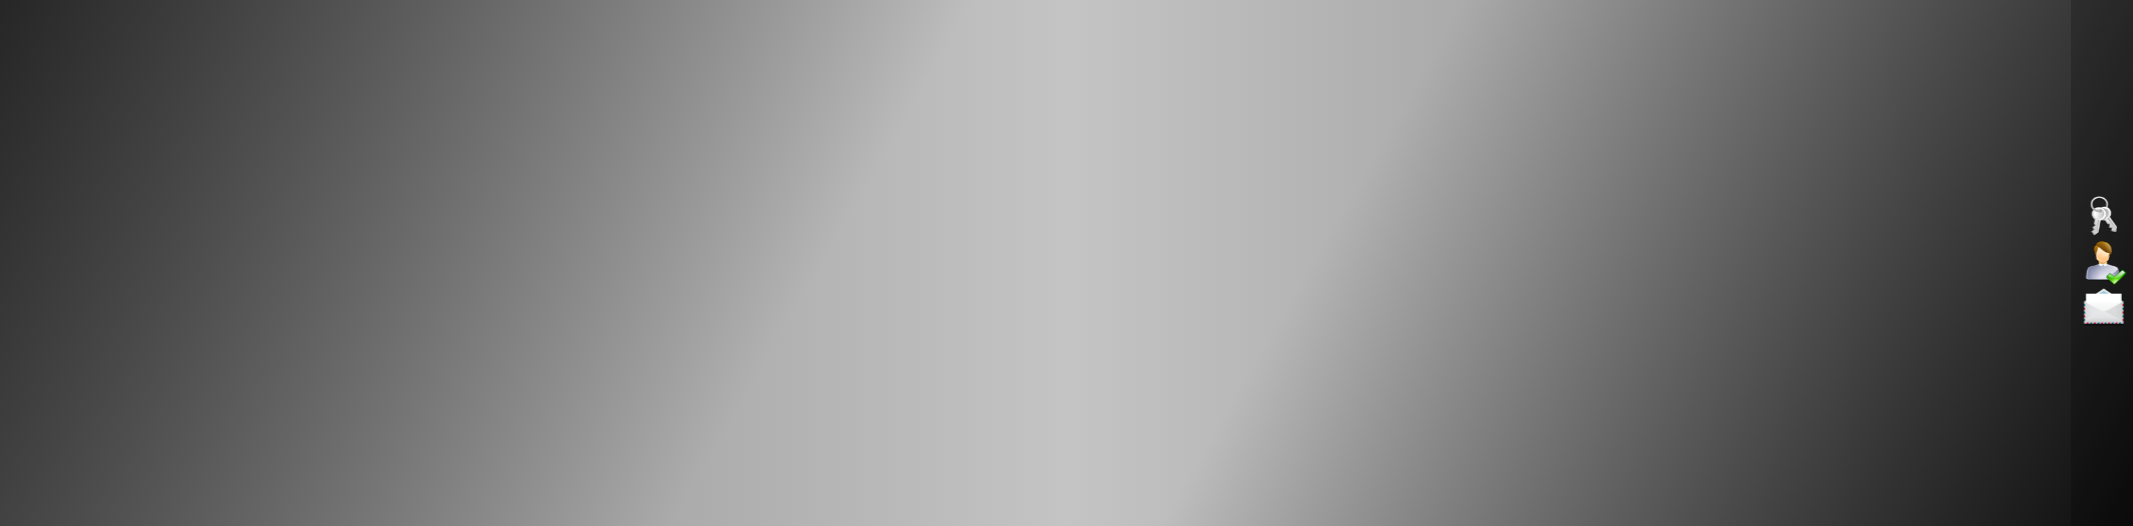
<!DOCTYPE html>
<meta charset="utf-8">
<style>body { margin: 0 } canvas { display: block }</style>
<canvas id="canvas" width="2133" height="526"></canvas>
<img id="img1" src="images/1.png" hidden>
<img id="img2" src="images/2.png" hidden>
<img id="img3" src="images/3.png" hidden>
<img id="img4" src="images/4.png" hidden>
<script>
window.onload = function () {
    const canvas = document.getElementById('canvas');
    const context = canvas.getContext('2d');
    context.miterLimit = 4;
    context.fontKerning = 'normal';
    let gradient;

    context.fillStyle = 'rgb(255, 255, 255)';
    context.fillRect(0, 0, 2133, 526);
    gradient = context.createLinearGradient(0, 263, 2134, 263);
    gradient.addColorStop(0, 'rgb(128, 128, 128)');
    gradient.addColorStop(0.5, 'rgb(196, 196, 196)');
    gradient.addColorStop(1, 'rgb(128, 128, 128)');
    context.fillStyle = gradient;
    context.fillRect(0, 0, 2133, 526);
    gradient = context.createLinearGradient(1981, 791, 153, -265);
    gradient.addColorStop(0, 'rgba(0, 0, 0, 0.9)');
    gradient.addColorStop(0.4, 'rgba(0, 0, 0, 0)');
    gradient.addColorStop(0.6, 'rgba(0, 0, 0, 0)');
    gradient.addColorStop(1, 'rgba(0, 0, 0, 0.7)');
    context.fillStyle = gradient;
    context.fillRect(0, 0, 2133, 526);
    context.fillStyle = 'rgba(0, 0, 0, 0.2)';
    context.fillRect(2071, 0, 62, 526);
    context.drawImage(document.getElementById('img1'), 2090, 196, 28, 40);
    context.drawImage(document.getElementById('img2'), 2085, 241, 36, 40);
    context.drawImage(document.getElementById('img3'), 2106, 269, 21, 16);
    context.drawImage(document.getElementById('img4'), 2083, 288, 41, 38);
};
</script>
